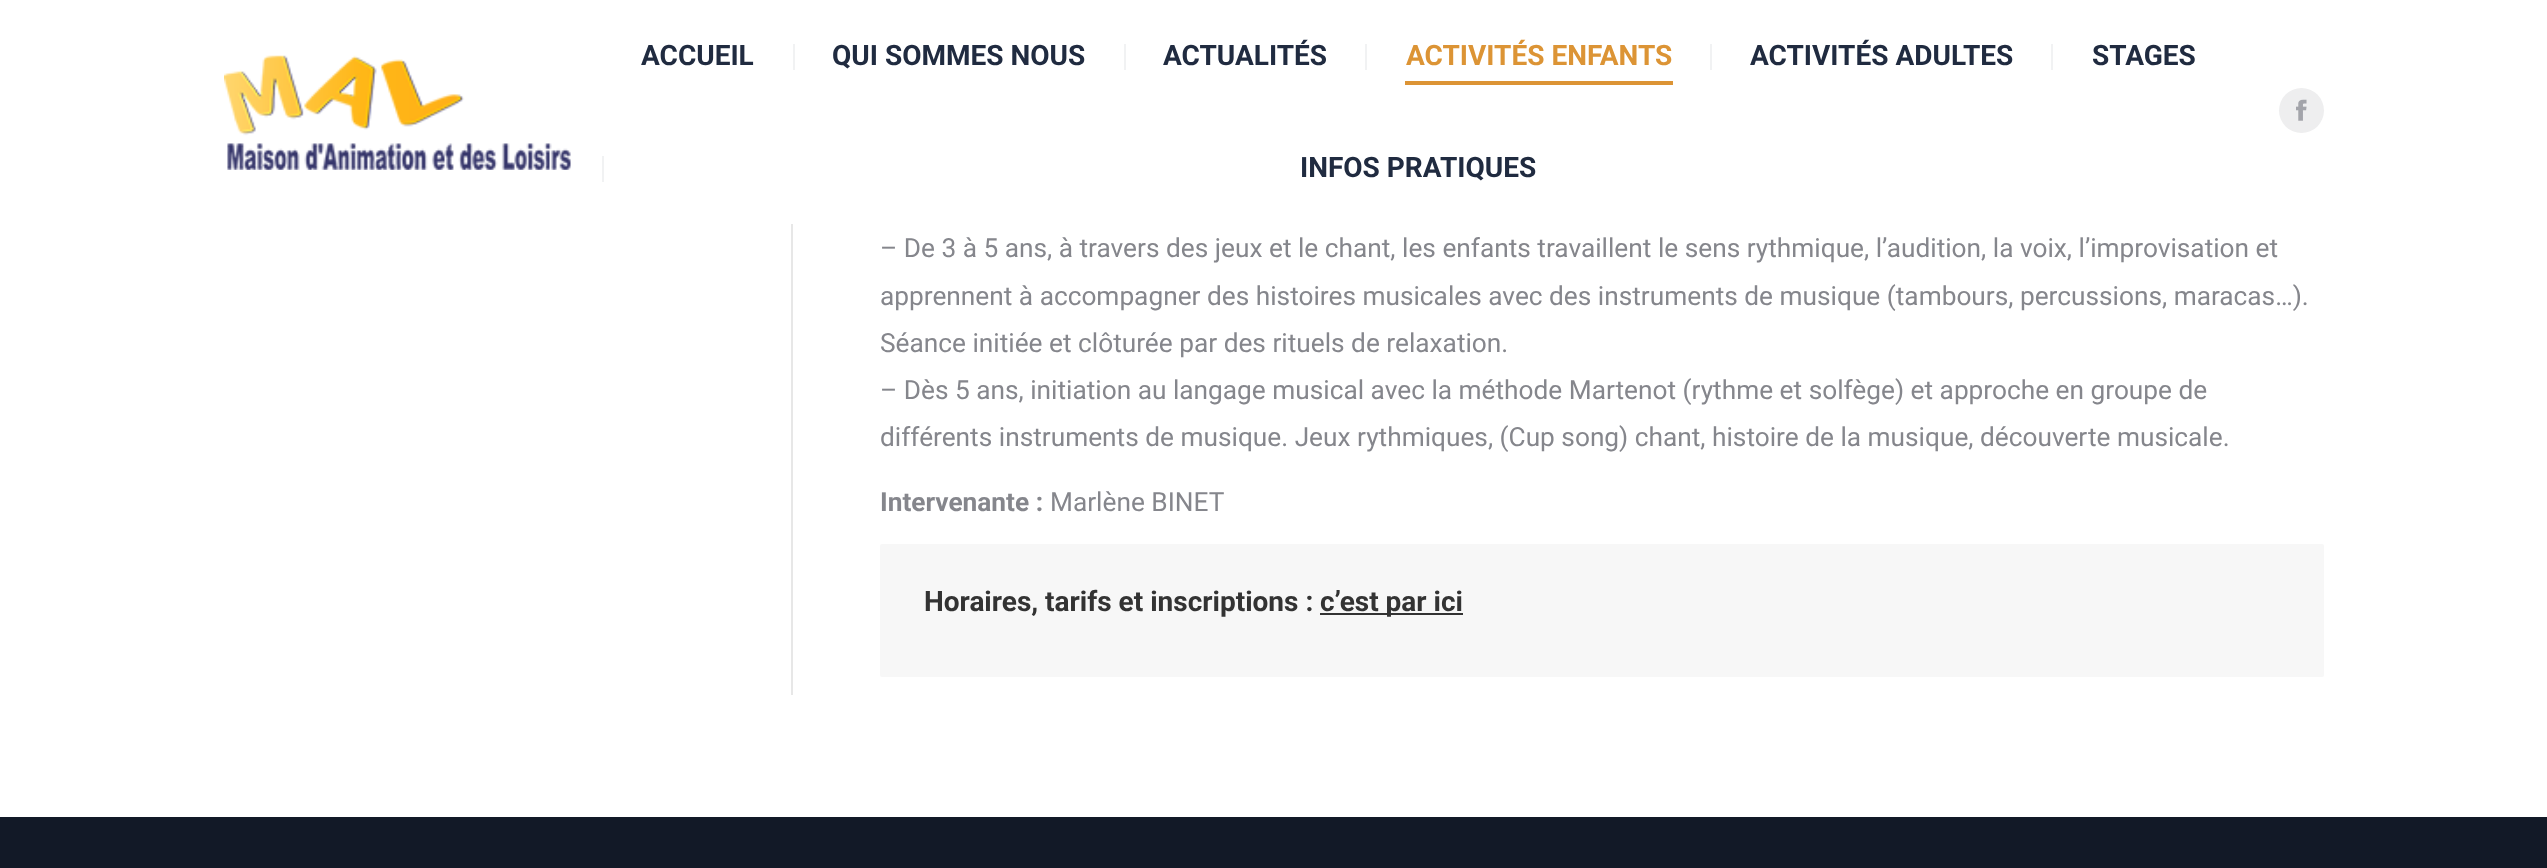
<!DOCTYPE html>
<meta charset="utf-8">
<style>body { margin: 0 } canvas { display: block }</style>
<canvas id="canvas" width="2547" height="868"></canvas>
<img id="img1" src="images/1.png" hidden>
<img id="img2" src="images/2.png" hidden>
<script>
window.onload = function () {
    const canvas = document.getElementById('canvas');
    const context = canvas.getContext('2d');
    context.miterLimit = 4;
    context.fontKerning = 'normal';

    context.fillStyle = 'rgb(18, 25, 39)';
    context.fillRect(0, 0, 2547, 868);
    context.fillStyle = 'rgb(255, 255, 255)';
    context.fillRect(0, 0, 2547, 817);
    context.drawImage(document.getElementById('img1'), 224, 55, 347, 115);
    context.fillStyle = 'rgb(241, 242, 243)';
    context.fillRect(793, 44, 2, 26);
    context.fillRect(1124, 44, 2, 26);
    context.fillRect(1365, 44, 2, 26);
    context.fillStyle = 'rgb(220, 148, 53)';
    context.fillRect(1405, 81, 268, 4);
    context.fillStyle = 'rgb(241, 242, 243)';
    context.fillRect(1710, 44, 2, 26);
    context.fillRect(2051, 44, 2, 26);
    context.fillRect(602, 156, 2, 26);
    context.fillStyle = 'rgb(238, 238, 239)';
    context.beginPath();
    context.arc(2301.5, 110.5, 22.5, 0, 2 * Math.PI);
    context.fill();
    context.drawImage(document.getElementById('img2'), 2296, 99, 11, 22);
    context.fillStyle = 'rgb(231, 231, 231)';
    context.fillRect(791, 224, 2, 471);
    context.fillStyle = 'rgb(247, 247, 247)';
    context.beginPath();
    context.roundRect(880, 544, 1444, 133, 2);
    context.fill();
    context.fillStyle = 'rgb(51, 51, 51)';
    context.fillRect(1320, 613, 143, 2);
    context.font = 'bold 28px Roboto';
    context.fillStyle = 'rgb(32, 43, 64)';
    context.fillText('ACCUEIL', 641, 65);
    context.fillText('QUI SOMMES NOUS', 832, 65);
    context.fillText('ACTUALITÉS', 1163, 65);
    context.fillStyle = 'rgb(220, 148, 53)';
    context.fillText('ACTIVITÉS ENFANTS', 1406, 65);
    context.fillStyle = 'rgb(32, 43, 64)';
    context.fillText('ACTIVITÉS ADULTES', 1750, 65);
    context.fillText('STAGES', 2092, 65);
    context.fillText('INFOS PRATIQUES', 1300, 177);
    context.font = '26.25px Roboto';
    context.fillStyle = 'rgb(133, 134, 140)';
    context.fillText('– De 3 à 5 ans, à travers des jeux et le chant, les enfants travaillent le sens rythmique, l’audition, la voix, l’improvisation et', 880, 257);
    context.fillText('apprennent à accompagner des histoires musicales avec des instruments de musique (tambours, percussions, maracas…).', 880, 305);
    context.fillText('Séance initiée et clôturée par des rituels de relaxation.', 880, 352);
    context.fillText('– Dès 5 ans, initiation au langage musical avec la méthode Martenot (rythme et solfège) et approche en groupe de', 880, 399);
    context.fillText('différents instruments de musique. Jeux rythmiques, (Cup song) chant, histoire de la musique, découverte musicale.', 880, 446);
    context.font = 'bold 26.25px Roboto';
    context.fillText('Intervenante :', 880, 511);
    context.font = '26.25px Roboto';
    context.fillText('Marlène BINET', 1050, 511);
    context.font = 'bold 28px Roboto';
    context.fillStyle = 'rgb(51, 51, 51)';
    context.fillText('Horaires, tarifs et inscriptions :', 924, 611);
    context.fillText('c’est par ici', 1320, 611);
};
</script>
